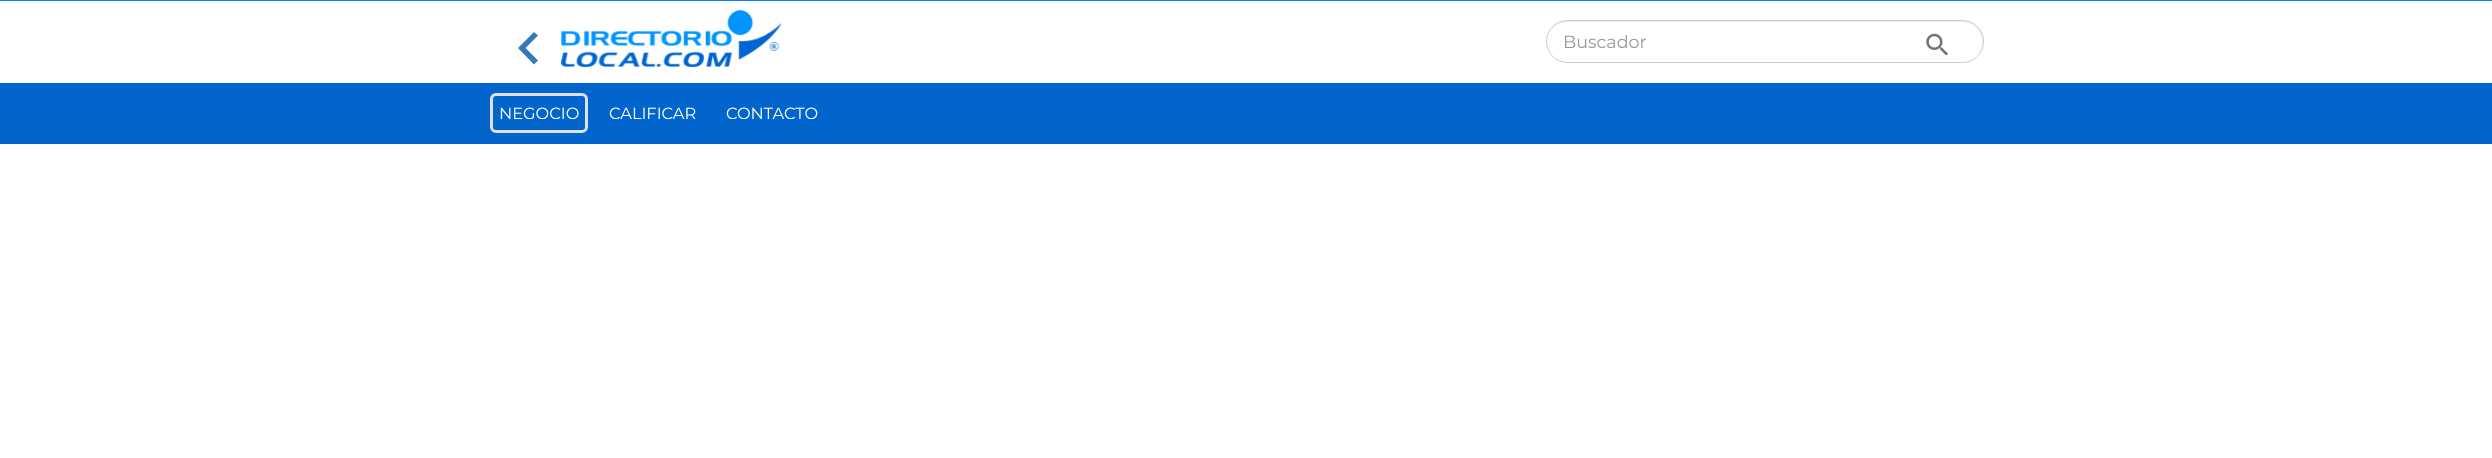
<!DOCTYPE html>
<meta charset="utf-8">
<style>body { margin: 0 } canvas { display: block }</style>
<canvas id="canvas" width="2492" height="458"></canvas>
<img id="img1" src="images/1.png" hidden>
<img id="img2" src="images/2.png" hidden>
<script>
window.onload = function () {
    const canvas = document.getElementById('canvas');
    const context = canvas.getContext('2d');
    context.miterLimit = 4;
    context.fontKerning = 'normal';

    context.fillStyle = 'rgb(255, 255, 255)';
    context.fillRect(0, 0, 2492, 458);
    context.fillStyle = 'rgb(11, 133, 255)';
    context.fillRect(0, 0, 2492, 1);
    context.fillStyle = 'rgb(51, 122, 183)';
    context.beginPath();
    context.moveTo(538, 60.5);
    context.lineTo(525.5, 48);
    context.lineTo(538, 35.5);
    context.lineTo(534, 32);
    context.lineTo(518, 48);
    context.lineTo(534, 64.5);
    context.closePath();
    context.fill();
    context.drawImage(document.getElementById('img1'), 561, 10, 222, 57);
    context.fillStyle = 'rgb(236, 236, 236)';
    context.beginPath();
    context.moveTo(1568, 22);
    context.lineTo(1962, 22);
    context.bezierCurveTo(1974, 22, 1982, 31, 1982, 42);
    context.bezierCurveTo(1982, 46, 1981, 49, 1980, 52);
    context.bezierCurveTo(1982, 49, 1983, 45, 1983, 41);
    context.bezierCurveTo(1983, 30, 1974, 21, 1963, 21);
    context.lineTo(1568, 21);
    context.bezierCurveTo(1557, 21, 1548, 30, 1548, 41);
    context.bezierCurveTo(1548, 31, 1556, 22, 1568, 22);
    context.closePath();
    context.fill();
    context.beginPath();
    context.roundRect(1546.5, 20.5, 437, 42, 21);
    context.strokeStyle = 'rgb(204, 204, 204)';
    context.stroke();
    context.drawImage(document.getElementById('img2'), 1926, 33, 22, 23);
    context.fillStyle = 'rgb(2, 101, 205)';
    context.fillRect(0, 83, 2492, 61);
    context.beginPath();
    context.roundRect(491.5, 94.5, 95, 37, 4.5);
    context.strokeStyle = 'rgb(224, 224, 224)';
    context.lineWidth = 3;
    context.stroke();
    context.font = '17.5px Montserrat';
    context.fillStyle = 'rgb(153, 153, 153)';
    context.fillText('Buscador', 1563, 48);
    context.font = '16.25px Montserrat';
    context.fillStyle = 'rgb(255, 255, 255)';
    context.fillText('NEGOCIO', 499, 119);
    context.fillText('CALIFICAR', 609, 119);
    context.fillText('CONTACTO', 726, 119);
};
</script>
